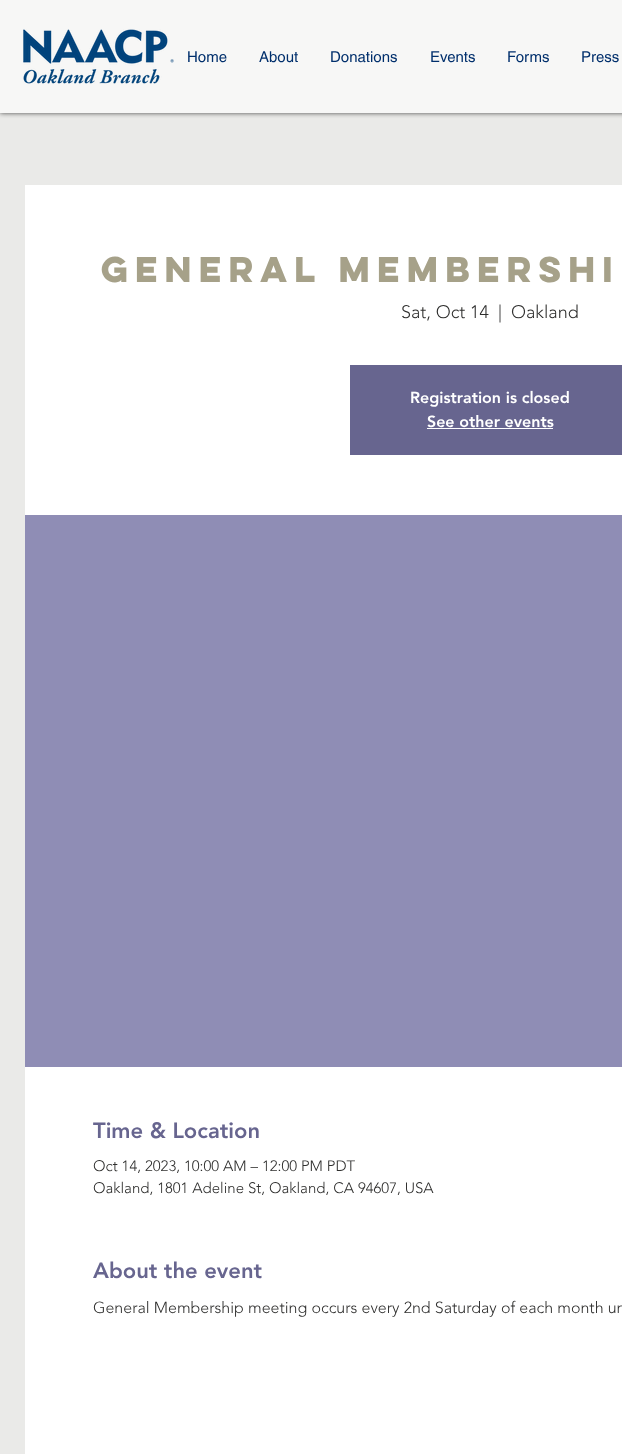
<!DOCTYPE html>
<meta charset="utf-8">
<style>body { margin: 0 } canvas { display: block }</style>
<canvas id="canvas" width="622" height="1454"></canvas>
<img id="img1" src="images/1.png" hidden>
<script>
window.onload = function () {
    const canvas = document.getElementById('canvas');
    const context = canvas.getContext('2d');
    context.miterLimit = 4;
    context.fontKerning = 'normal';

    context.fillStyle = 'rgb(234, 234, 232)';
    context.fillRect(0, 0, 622, 1454);
    context.fillStyle = 'rgba(0, 0, 0, 0.7)';
    context.filter = 'blur(2.5px)';
    context.beginPath();
    context.rect(0, 0, 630, 113);
    context.fill();
    context.filter = 'none';
    context.fillStyle = 'rgb(247, 247, 246)';
    context.fillRect(0, 0, 622, 113);
    context.drawImage(document.getElementById('img1'), 23, 29, 151, 55);
    context.fillStyle = 'rgb(255, 255, 255)';
    context.fillRect(25, 185, 597, 1269);
    context.fillStyle = 'rgb(103, 101, 143)';
    context.fillRect(350, 365, 272, 90);
    context.fillStyle = 'rgb(255, 255, 255)';
    context.fillRect(427, 428, 126, 1);
    context.fillStyle = 'rgb(143, 141, 181)';
    context.fillRect(25, 515, 597, 552);
    context.font = '15px helvetica';
    context.fillStyle = 'rgb(0, 47, 108)';
    context.fillText('Home', 187, 62);
    context.fillText('About', 259, 62);
    context.fillText('Donations', 330, 62);
    context.fillText('Events', 430, 62);
    context.fillText('Forms', 507, 62);
    context.fillText('Press', 581, 62);
    context.font = 'bold 32px "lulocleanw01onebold"';
    context.fillStyle = 'rgb(166, 161, 137)';
    context.fillText('General Membershi', 101, 282);
    context.font = '300 18px "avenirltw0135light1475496"';
    context.fillStyle = 'rgb(47, 47, 46)';
    context.fillText('Sat, Oct 14', 401, 318);
    context.fillText('|', 498, 318);
    context.fillText('Oakland', 511, 318);
    context.font = '900 16px "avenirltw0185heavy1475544"';
    context.fillStyle = 'rgb(255, 255, 255)';
    context.fillText('Registration is closed', 410, 403);
    context.fillText('See other events', 427, 427);
    context.font = '900 22px "avenirltw0185heavy1475544"';
    context.fillStyle = 'rgb(103, 101, 143)';
    context.fillText('Time & Location', 93, 1138);
    context.font = '300 15px "avenirltw0135light1475496"';
    context.fillStyle = 'rgb(47, 47, 46)';
    context.fillText('Oct 14, 2023, 10:00 AM – 12:00 PM PDT', 93, 1171);
    context.fillText('Oakland, 1801 Adeline St, Oakland, CA 94607, USA', 93, 1193);
    context.font = '900 22px "avenirltw0185heavy1475544"';
    context.fillStyle = 'rgb(103, 101, 143)';
    context.fillText('About the event', 93, 1278);
    context.font = '300 16px "avenirltw0135light1475496"';
    context.fillStyle = 'rgb(47, 47, 46)';
    context.fillText('General Membership meeting occurs every 2nd Saturday of each month un', 93, 1313);
};
</script>
